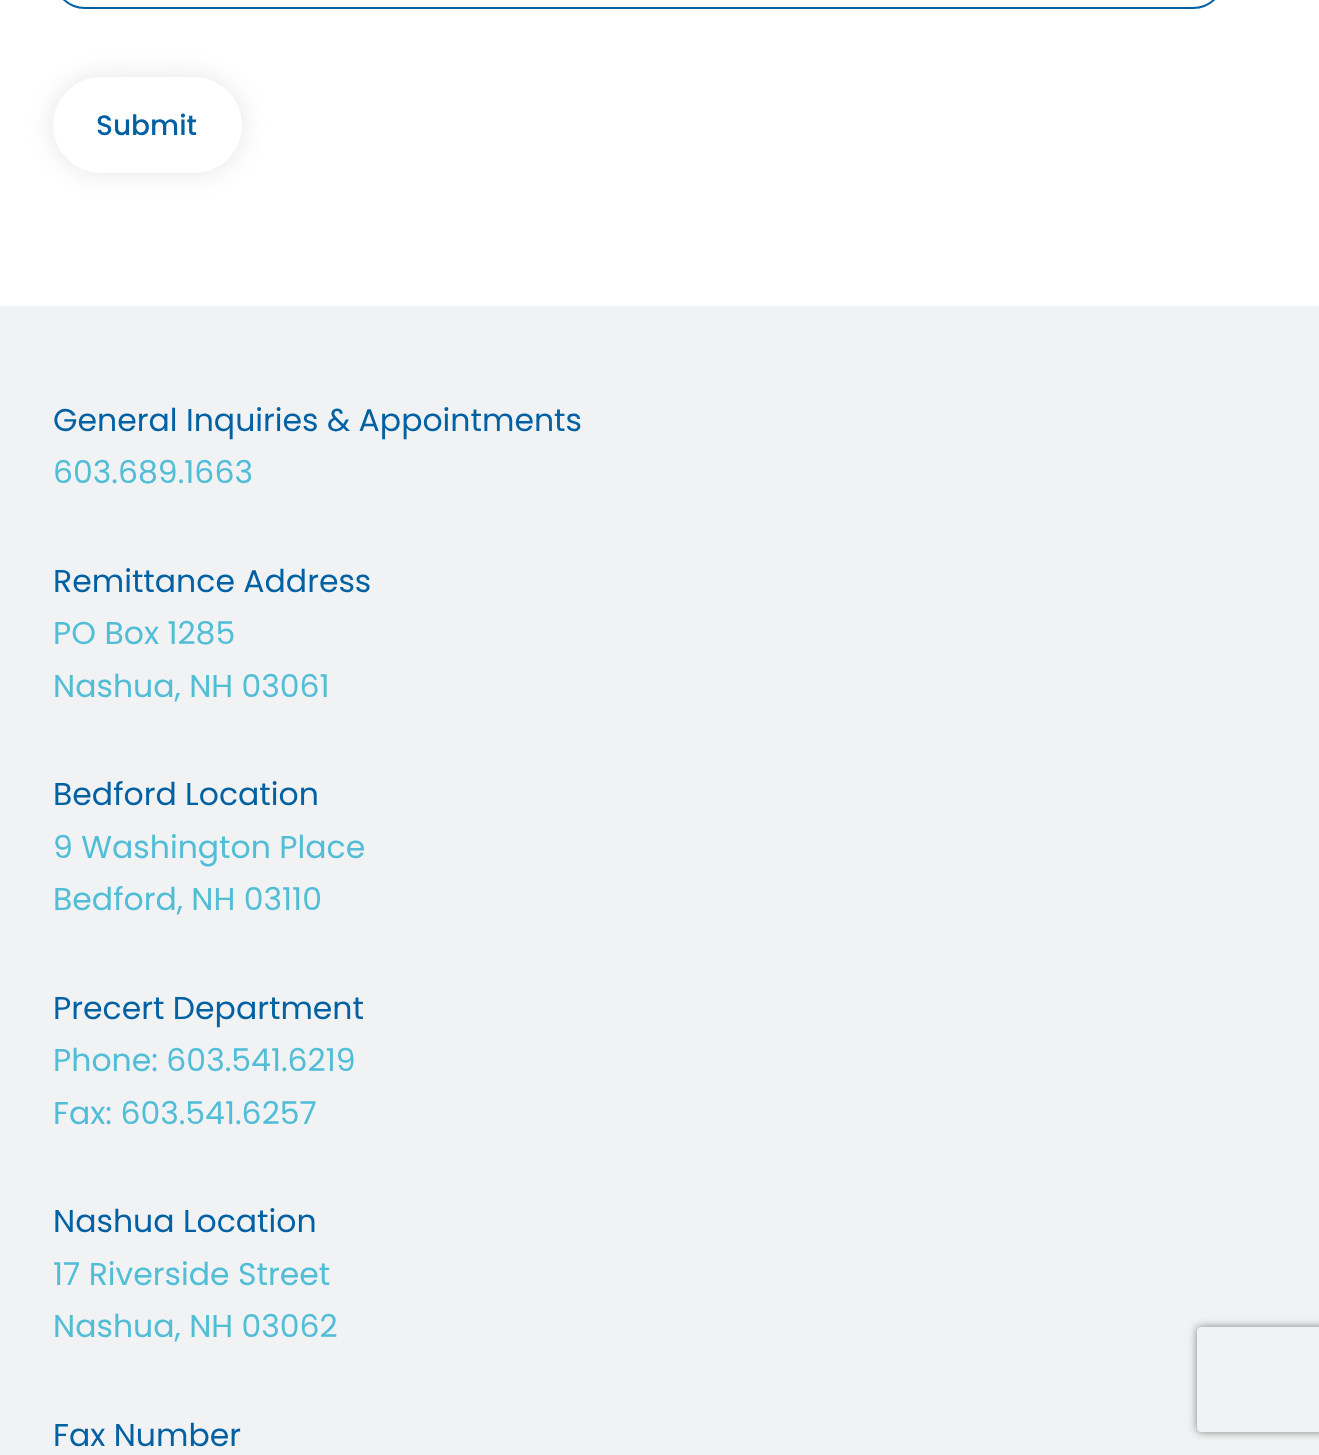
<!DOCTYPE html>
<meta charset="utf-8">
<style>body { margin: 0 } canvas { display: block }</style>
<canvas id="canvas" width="1319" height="1455"></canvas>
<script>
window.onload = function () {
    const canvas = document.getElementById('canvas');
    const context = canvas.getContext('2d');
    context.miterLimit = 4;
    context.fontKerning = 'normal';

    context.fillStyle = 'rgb(255, 255, 255)';
    context.fillRect(0, 0, 1319, 1455);
    context.beginPath();
    context.roundRect(54, -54, 1170, 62, 52);
    context.strokeStyle = 'rgb(2, 97, 163)';
    context.lineWidth = 2;
    context.stroke();
    context.fillStyle = 'rgb(240, 242, 243)';
    context.fillRect(0, 306, 1319, 1149);
    context.save();
    context.beginPath();
    context.moveTo(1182, 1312);
    context.lineTo(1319, 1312);
    context.lineTo(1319, 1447);
    context.lineTo(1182, 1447);
    context.closePath();
    context.moveTo(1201, 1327);
    context.lineTo(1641, 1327);
    context.bezierCurveTo(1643, 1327, 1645, 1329, 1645, 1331);
    context.lineTo(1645, 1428);
    context.bezierCurveTo(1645, 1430, 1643, 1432, 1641, 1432);
    context.lineTo(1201, 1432);
    context.bezierCurveTo(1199, 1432, 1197, 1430, 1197, 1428);
    context.lineTo(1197, 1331);
    context.bezierCurveTo(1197, 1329, 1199, 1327, 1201, 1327);
    context.closePath();
    context.clip('evenodd');
    context.fillStyle = 'rgb(128, 128, 128)';
    context.filter = 'blur(4.5px)';
    context.beginPath();
    context.roundRect(1197, 1327, 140, 105, 4);
    context.fill();
    context.filter = 'none';
    context.restore();
    context.fillStyle = 'rgb(229, 229, 229)';
    context.filter = 'blur(13px)';
    context.beginPath();
    context.roundRect(53, 77, 189, 96, 48);
    context.fill();
    context.filter = 'none';
    context.fillStyle = 'rgb(255, 255, 255)';
    context.beginPath();
    context.roundRect(53, 77, 189, 96, 48);
    context.fill();
    context.font = '500 28px Poppins';
    context.fillStyle = 'rgb(2, 97, 163)';
    context.fillText('Submit', 96, 135);
    context.font = '31.5px Poppins';
    context.fillText('General Inquiries & Appointments', 53, 431);
    context.fillStyle = 'rgb(81, 189, 215)';
    context.fillText('603.689.1663', 53, 483);
    context.fillStyle = 'rgb(2, 97, 163)';
    context.fillText('Remittance Address', 53, 592);
    context.fillStyle = 'rgb(81, 189, 215)';
    context.fillText('PO Box 1285', 53, 644);
    context.fillText('Nashua, NH 03061', 53, 697);
    context.fillStyle = 'rgb(2, 97, 163)';
    context.fillText('Bedford Location', 53, 805);
    context.fillStyle = 'rgb(81, 189, 215)';
    context.fillText('9 Washington Place', 53, 858);
    context.fillText('Bedford, NH 03110', 53, 910);
    context.fillStyle = 'rgb(2, 97, 163)';
    context.fillText('Precert Department', 53, 1019);
    context.fillStyle = 'rgb(81, 189, 215)';
    context.fillText('Phone: 603.541.6219', 53, 1071);
    context.fillText('Fax: 603.541.6257', 53, 1124);
    context.fillStyle = 'rgb(2, 97, 163)';
    context.fillText('Nashua Location', 53, 1232);
    context.fillStyle = 'rgb(81, 189, 215)';
    context.fillText('17 Riverside Street', 53, 1285);
    context.fillText('Nashua, NH 03062', 53, 1337);
    context.fillStyle = 'rgb(2, 97, 163)';
    context.fillText('Fax Number', 53, 1446);
};
</script>
